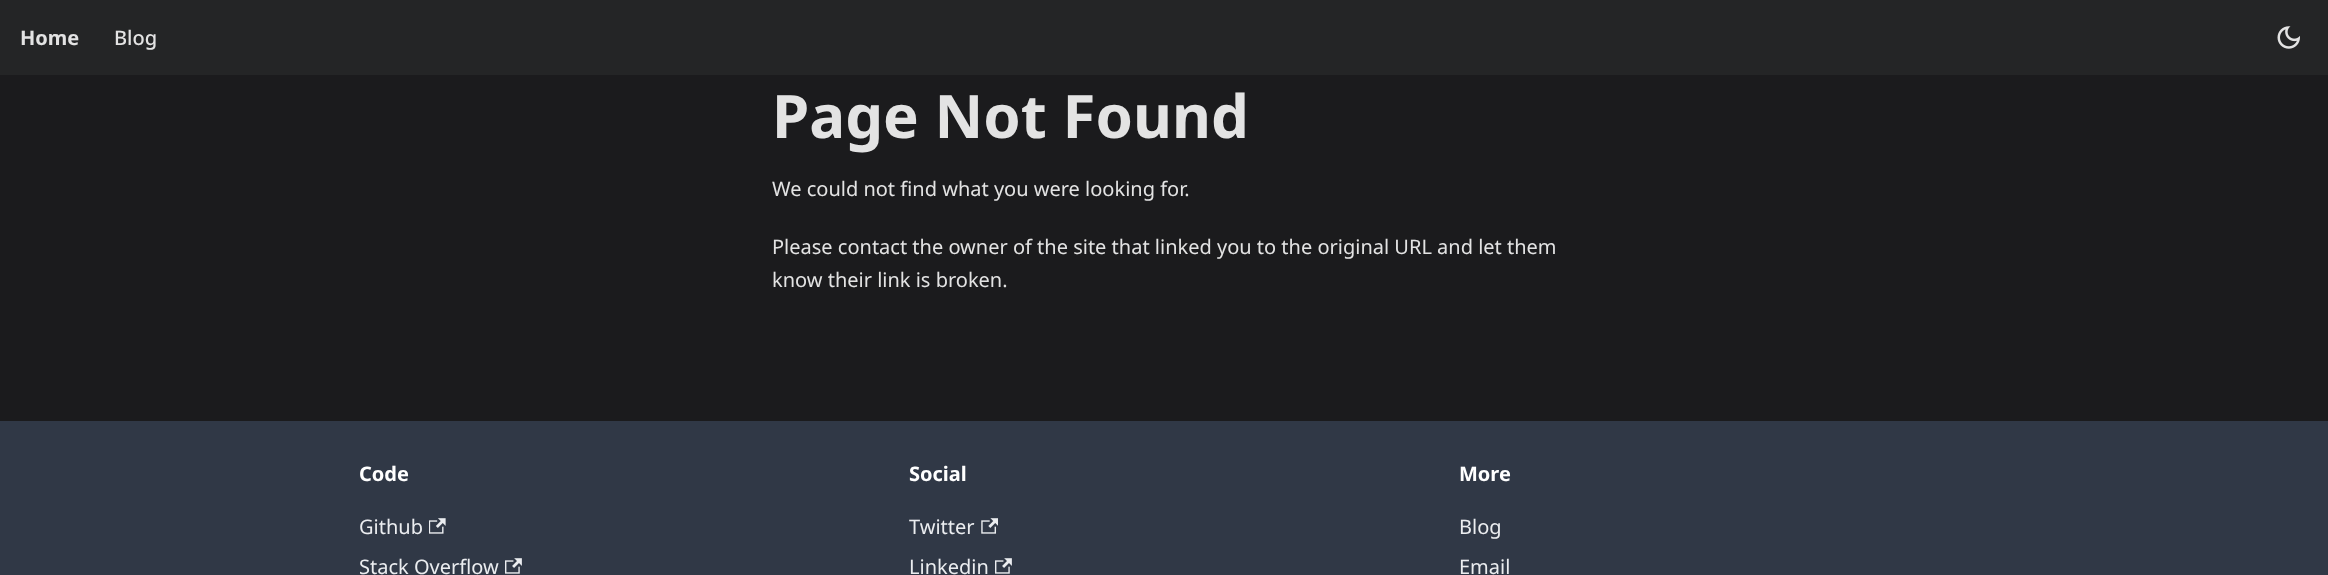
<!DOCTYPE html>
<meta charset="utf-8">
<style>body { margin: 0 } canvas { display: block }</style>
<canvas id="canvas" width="2328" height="575"></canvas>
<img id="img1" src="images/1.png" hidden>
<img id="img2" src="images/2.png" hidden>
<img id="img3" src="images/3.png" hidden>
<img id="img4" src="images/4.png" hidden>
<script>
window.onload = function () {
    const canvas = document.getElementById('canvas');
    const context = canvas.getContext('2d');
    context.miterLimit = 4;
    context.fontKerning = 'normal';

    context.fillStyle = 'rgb(27, 27, 29)';
    context.fillRect(0, 0, 2328, 575);
    context.fillStyle = 'rgb(36, 37, 38)';
    context.fillRect(0, 0, 2328, 75);
    context.drawImage(document.getElementById('img1'), 2277, 26, 23, 23);
    context.fillStyle = 'rgb(48, 56, 70)';
    context.fillRect(0, 421, 2328, 154);
    context.drawImage(document.getElementById('img2'), 429, 518, 17, 16);
    context.drawImage(document.getElementById('img3'), 505, 558, 17, 16);
    context.drawImage(document.getElementById('img4'), 981, 518, 17, 16);
    context.drawImage(document.getElementById('img3'), 995, 558, 17, 16);
    context.font = 'bold 20px Noto Sans';
    context.fillStyle = 'rgb(227, 227, 227)';
    context.fillText('Home', 20, 45);
    context.font = '500 20px Noto Sans';
    context.fillText('Blog', 114, 45);
    context.font = 'bold 60px Noto Sans';
    context.fillText('Page Not Found', 772, 138);
    context.font = '20px Noto Sans';
    context.fillText('We could not find what you were looking for.', 772, 196);
    context.fillText('Please contact the owner of the site that linked you to the original URL and let them', 772, 254);
    context.fillText('know their link is broken.', 772, 287);
    context.font = 'bold 20px Noto Sans';
    context.fillStyle = 'rgb(255, 255, 255)';
    context.fillText('Code', 359, 481);
    context.font = '20px Noto Sans';
    context.fillStyle = 'rgb(235, 237, 240)';
    context.fillText('Github', 359, 534);
    context.fillText('Stack Overflow', 359, 574);
    context.font = 'bold 20px Noto Sans';
    context.fillStyle = 'rgb(255, 255, 255)';
    context.fillText('Social', 909, 481);
    context.font = '20px Noto Sans';
    context.fillStyle = 'rgb(235, 237, 240)';
    context.fillText('Twitter', 909, 534);
    context.fillText('Linkedin', 909, 574);
    context.font = 'bold 20px Noto Sans';
    context.fillStyle = 'rgb(255, 255, 255)';
    context.fillText('More', 1459, 481);
    context.font = '20px Noto Sans';
    context.fillStyle = 'rgb(235, 237, 240)';
    context.fillText('Blog', 1459, 534);
    context.fillText('Email', 1459, 574);
};
</script>
